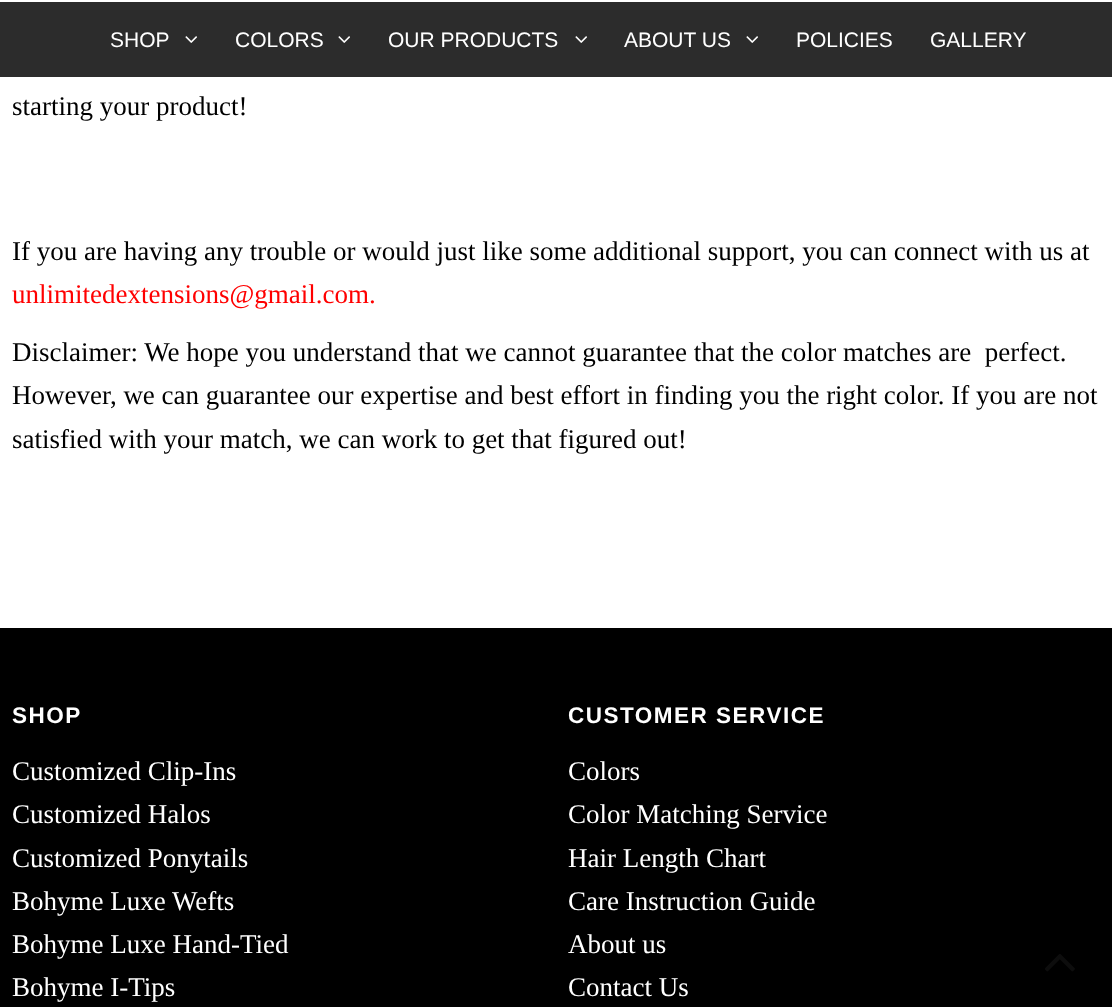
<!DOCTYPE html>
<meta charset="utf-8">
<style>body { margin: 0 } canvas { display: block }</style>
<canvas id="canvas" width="1112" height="1007"></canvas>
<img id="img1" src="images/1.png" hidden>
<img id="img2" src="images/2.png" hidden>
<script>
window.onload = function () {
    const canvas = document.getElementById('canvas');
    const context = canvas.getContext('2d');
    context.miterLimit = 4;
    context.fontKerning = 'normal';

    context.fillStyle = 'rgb(255, 255, 255)';
    context.fillRect(0, 0, 1112, 1007);
    context.fillStyle = 'rgb(44, 44, 44)';
    context.fillRect(0, 2, 1112, 75);
    context.drawImage(document.getElementById('img1'), 185, 36, 12, 7);
    context.drawImage(document.getElementById('img1'), 338, 36, 12, 7);
    context.drawImage(document.getElementById('img1'), 575, 36, 12, 7);
    context.drawImage(document.getElementById('img1'), 746, 36, 12, 7);
    context.fillStyle = 'rgb(0, 0, 0)';
    context.fillRect(0, 628, 1112, 379);
    context.drawImage(document.getElementById('img2'), 1045, 954, 30, 18);
    context.font = '21px Liberation Sans';
    context.fillStyle = 'rgb(255, 255, 255)';
    context.fillText('SHOP', 110, 47);
    context.fillText('COLORS', 235, 47);
    context.fillText('OUR PRODUCTS', 388, 47);
    context.fillText('ABOUT US', 624, 47);
    context.fillText('POLICIES', 796, 47);
    context.fillText('GALLERY', 930, 47);
    context.font = '27px Liberation Serif';
    context.fillStyle = 'rgb(0, 0, 0)';
    context.fillText('starting your product!', 12, 115);
    context.fillText('If you are having any trouble or would just like some additional support, you can connect with us at', 12, 260);
    context.fillStyle = 'rgb(255, 0, 0)';
    context.fillText('unlimitedextensions@gmail.com.', 12, 303);
    context.fillStyle = 'rgb(0, 0, 0)';
    context.fillText('Disclaimer: We hope you understand that we cannot guarantee that the color matches are  perfect.', 12, 361);
    context.fillText('However, we can guarantee our expertise and best effort in finding you the right color. If you are not', 12, 404);
    context.fillText('satisfied with your match, we can work to get that figured out!', 12, 448);
    context.letterSpacing = '1.5px';
    context.font = 'bold 22.5px Liberation Sans';
    context.fillStyle = 'rgb(255, 255, 255)';
    context.fillText('SHOP', 12, 723);
    context.letterSpacing = '0px';
    context.font = '27px Liberation Serif';
    context.fillText('Customized Clip-Ins', 12, 780);
    context.fillText('Customized Halos', 12, 823);
    context.fillText('Customized Ponytails', 12, 867);
    context.fillText('Bohyme Luxe Wefts', 12, 910);
    context.fillText('Bohyme Luxe Hand-Tied', 12, 953);
    context.fillText('Bohyme I-Tips', 12, 996);
    context.letterSpacing = '1.5px';
    context.font = 'bold 22.5px Liberation Sans';
    context.fillText('CUSTOMER SERVICE', 568, 723);
    context.letterSpacing = '0px';
    context.font = '27px Liberation Serif';
    context.fillText('Colors', 568, 780);
    context.fillText('Color Matching Service', 568, 823);
    context.fillText('Hair Length Chart', 568, 867);
    context.fillText('Care Instruction Guide', 568, 910);
    context.fillText('About us', 568, 953);
    context.fillText('Contact Us', 568, 996);
};
</script>
